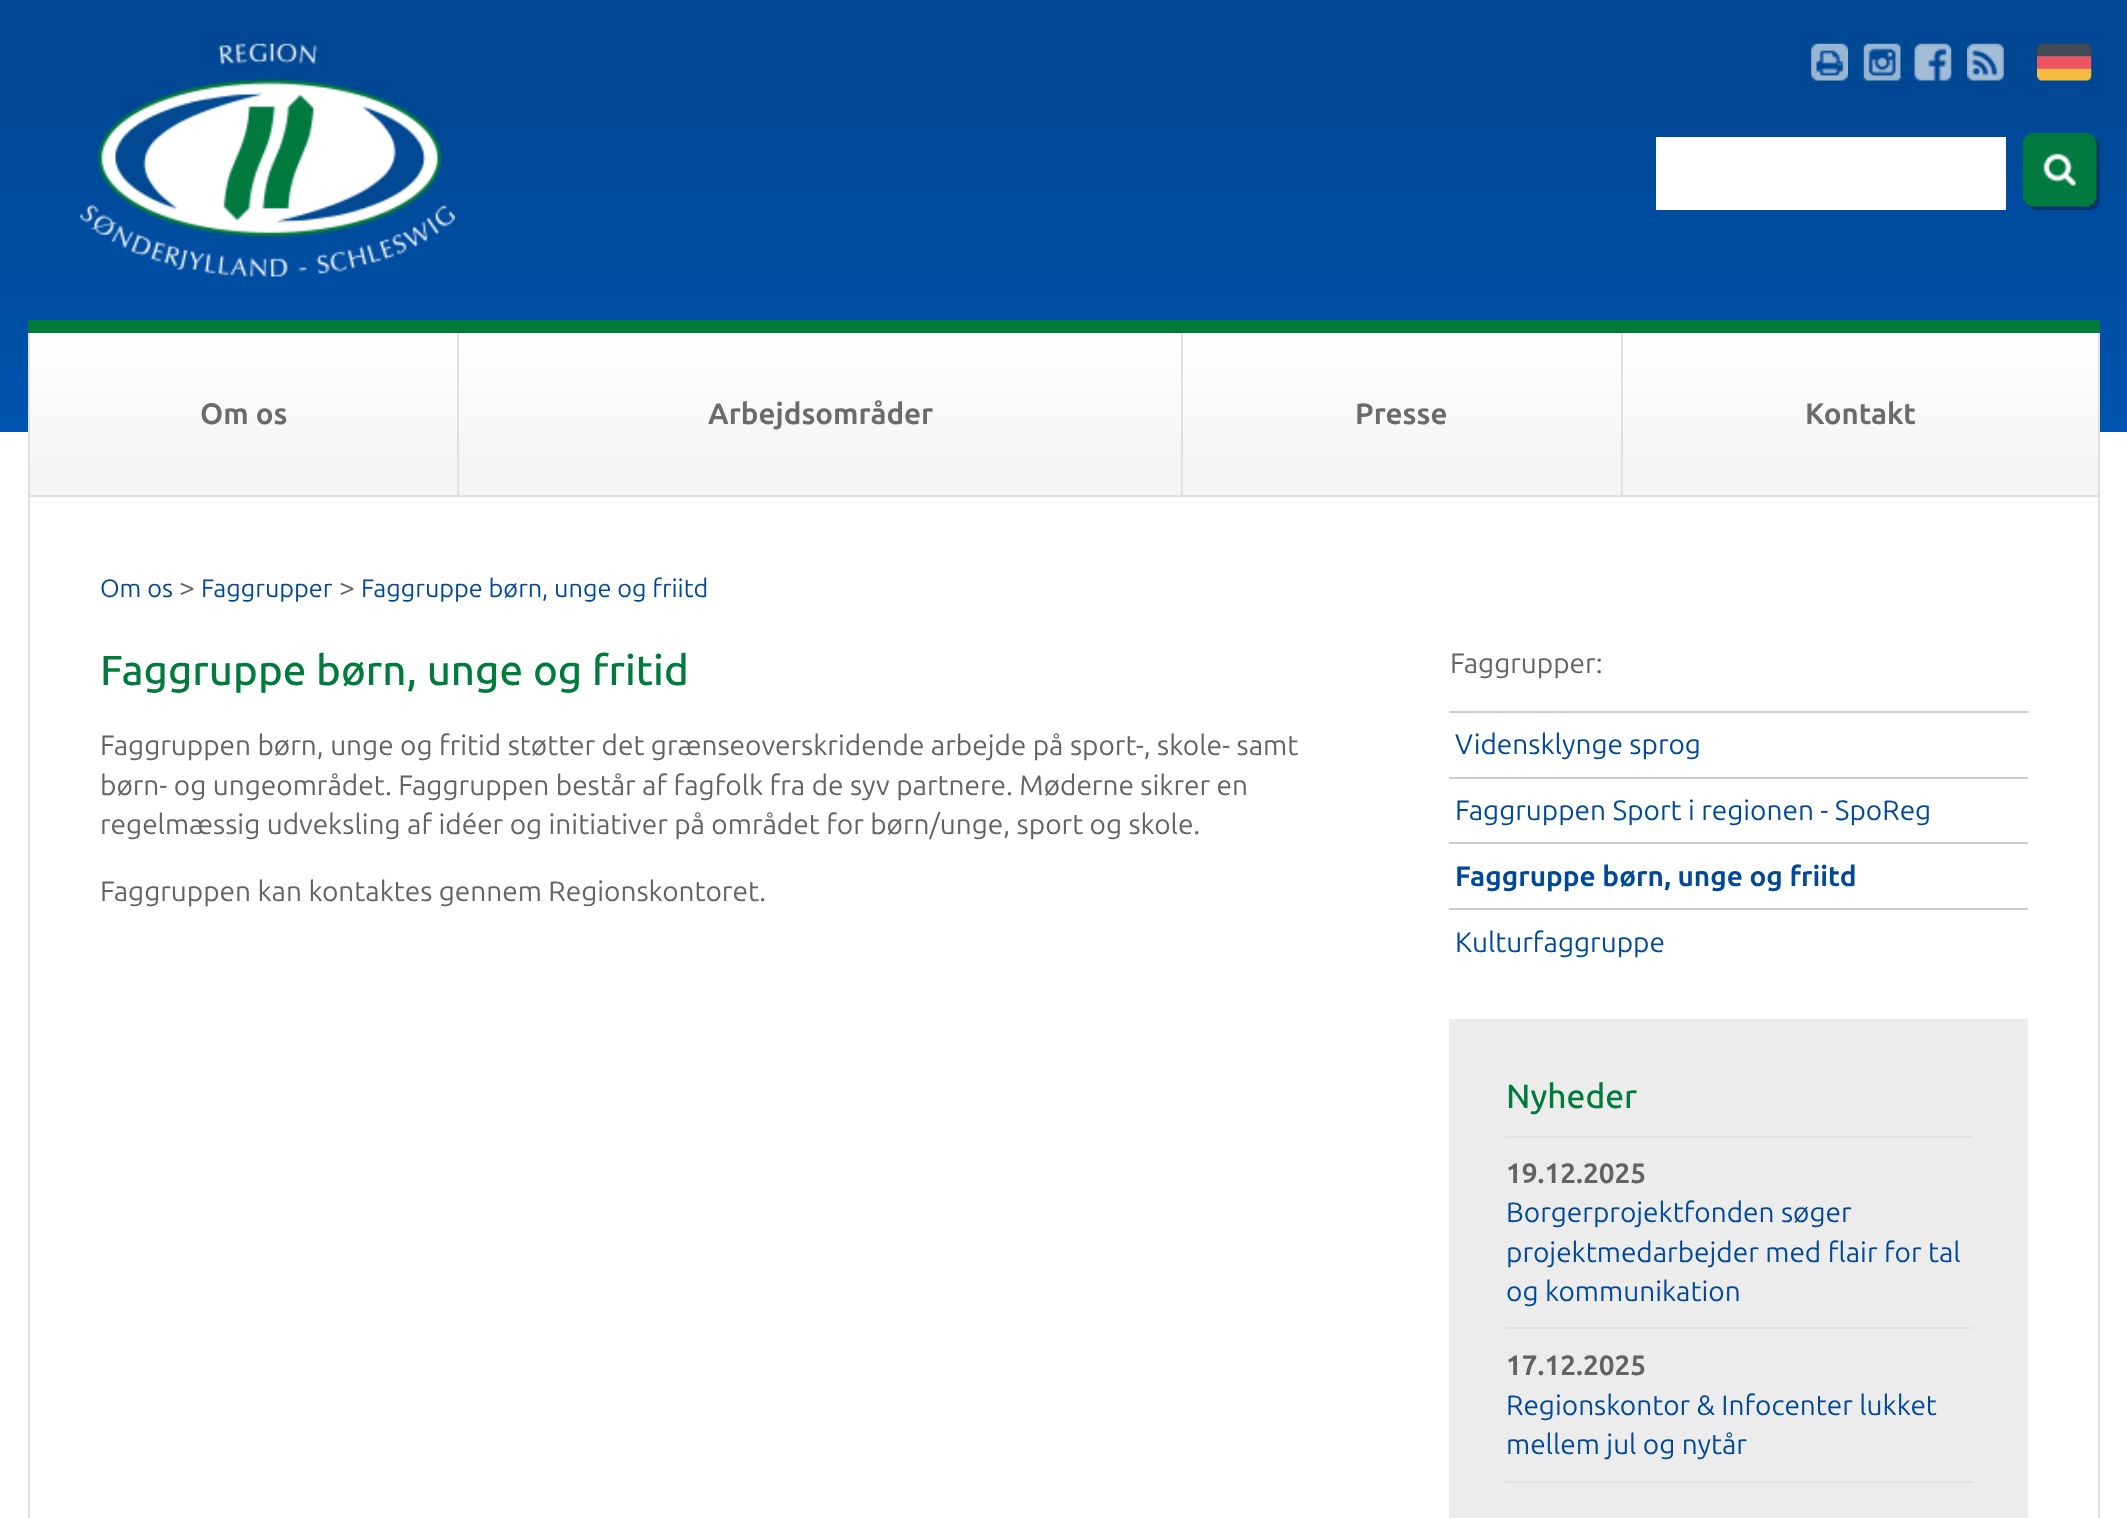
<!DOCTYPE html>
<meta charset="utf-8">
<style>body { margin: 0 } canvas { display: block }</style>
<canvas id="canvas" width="2127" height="1518"></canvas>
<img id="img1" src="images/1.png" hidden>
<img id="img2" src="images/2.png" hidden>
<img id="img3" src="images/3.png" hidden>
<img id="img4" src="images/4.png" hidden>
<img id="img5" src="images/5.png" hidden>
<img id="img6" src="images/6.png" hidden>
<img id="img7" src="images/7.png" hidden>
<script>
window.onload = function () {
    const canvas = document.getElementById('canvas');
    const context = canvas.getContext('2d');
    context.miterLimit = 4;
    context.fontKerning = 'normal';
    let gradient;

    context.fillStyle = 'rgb(255, 255, 255)';
    context.fillRect(0, 0, 2127, 1518);
    gradient = context.createLinearGradient(1064, 432, 1064, 0);
    gradient.addColorStop(0, 'rgb(0, 83, 175)');
    gradient.addColorStop(0.8, 'rgb(0, 71, 148)');
    context.fillStyle = gradient;
    context.fillRect(0, 0, 2127, 432);
    context.drawImage(document.getElementById('img1'), 80, 43, 375, 234);
    context.drawImage(document.getElementById('img2'), 1811, 43, 37, 38);
    context.drawImage(document.getElementById('img3'), 1863, 43, 38, 38);
    context.drawImage(document.getElementById('img4'), 1914, 43, 38, 38);
    context.drawImage(document.getElementById('img5'), 1967, 43, 37, 38);
    context.drawImage(document.getElementById('img6'), 2037, 43, 55, 38);
    context.fillStyle = 'rgb(255, 255, 255)';
    context.fillRect(1656, 137, 350, 73);
    context.drawImage(document.getElementById('img7'), 2023, 133, 77, 77);
    context.fillStyle = 'rgb(0, 123, 60)';
    context.fillRect(28, 320, 2072, 13);
    gradient = context.createLinearGradient(1064, 332, 1064, 495);
    gradient.addColorStop(0, 'rgb(255, 255, 255)');
    gradient.addColorStop(0.8, 'rgb(245, 245, 245)');
    context.fillStyle = gradient;
    context.fillRect(30, 333, 2068, 162);
    context.fillStyle = 'rgb(224, 224, 224)';
    context.fillRect(2098, 333, 2, 1185);
    context.fillRect(28, 495, 2072, 2);
    context.fillRect(28, 333, 2, 1185);
    context.fillRect(457, 333, 2, 162);
    context.fillRect(1181, 333, 2, 162);
    context.fillRect(1621, 333, 2, 162);
    context.fillStyle = 'rgb(204, 204, 204)';
    context.fillRect(1449, 711, 579, 2);
    context.fillRect(1449, 777, 579, 2);
    context.fillRect(1449, 842, 579, 2);
    context.fillRect(1449, 908, 579, 2);
    context.fillStyle = 'rgb(236, 236, 236)';
    context.fillRect(1449, 1019, 579, 499);
    context.fillStyle = 'rgb(225, 225, 225)';
    context.fillRect(1505, 1136, 467, 2);
    context.fillRect(1505, 1327, 467, 2);
    context.fillRect(1505, 1481, 467, 2);
    context.font = 'bold 29.5px Ubuntu';
    context.fillStyle = 'rgb(107, 107, 107)';
    context.fillText('Om os', 200, 424);
    context.fillText('Arbejdsområder', 708, 424);
    context.fillText('Presse', 1355, 424);
    context.fillText('Kontakt', 1805, 424);
    context.font = '25.25px Ubuntu';
    context.fillStyle = 'rgb(0, 73, 153)';
    context.fillText('Om os', 100, 597);
    context.font = '28px Ubuntu';
    context.fillStyle = 'rgb(99, 99, 99)';
    context.fillText('>', 179, 597);
    context.font = '25.25px Ubuntu';
    context.fillStyle = 'rgb(0, 73, 153)';
    context.fillText('Faggrupper', 201, 597);
    context.font = '28px Ubuntu';
    context.fillStyle = 'rgb(99, 99, 99)';
    context.fillText('>', 339, 597);
    context.font = '25.25px Ubuntu';
    context.fillStyle = 'rgb(0, 73, 153)';
    context.fillText('Faggruppe børn, unge og friitd', 361, 597);
    context.font = '500 42px Ubuntu';
    context.fillStyle = 'rgb(0, 123, 60)';
    context.fillText('Faggruppe børn, unge og fritid', 100, 685);
    context.font = '28px Ubuntu';
    context.fillStyle = 'rgb(99, 99, 99)';
    context.fillText('Faggruppen børn, unge og fritid støtter det grænseoverskridende arbejde på sport-, skole- samt', 100, 755);
    context.fillText('børn- og ungeområdet. Faggruppen består af fagfolk fra de syv partnere. Møderne sikrer en', 100, 795);
    context.fillText('regelmæssig udveksling af idéer og initiativer på området for børn/unge, sport og skole.', 100, 834);
    context.fillText('Faggruppen kan kontaktes gennem Regionskontoret.', 100, 901);
    context.fillText('Faggrupper:', 1450, 673);
    context.fillStyle = 'rgb(0, 73, 153)';
    context.fillText('Vidensklynge sprog', 1455, 754);
    context.fillText('Faggruppen Sport i regionen - SpoReg', 1455, 820);
    context.font = 'bold 28px Ubuntu';
    context.fillText('Faggruppe børn, unge og friitd', 1455, 886);
    context.font = '28px Ubuntu';
    context.fillText('Kulturfaggruppe', 1455, 952);
    context.font = '500 33.5px Ubuntu';
    context.fillStyle = 'rgb(0, 123, 60)';
    context.fillText('Nyheder', 1506, 1108);
    context.font = 'bold 28px Ubuntu';
    context.fillStyle = 'rgb(99, 99, 99)';
    context.fillText('19.12.2025', 1506, 1183);
    context.font = '28px Ubuntu';
    context.fillStyle = 'rgb(0, 73, 153)';
    context.fillText('Borgerprojektfonden søger', 1506, 1222);
    context.fillText('projektmedarbejder med flair for tal', 1506, 1262);
    context.fillText('og kommunikation', 1506, 1301);
    context.font = 'bold 28px Ubuntu';
    context.fillStyle = 'rgb(99, 99, 99)';
    context.fillText('17.12.2025', 1506, 1375);
    context.font = '28px Ubuntu';
    context.fillStyle = 'rgb(0, 73, 153)';
    context.fillText('Regionskontor & Infocenter lukket', 1506, 1415);
    context.fillText('mellem jul og nytår', 1506, 1454);
};
</script>
